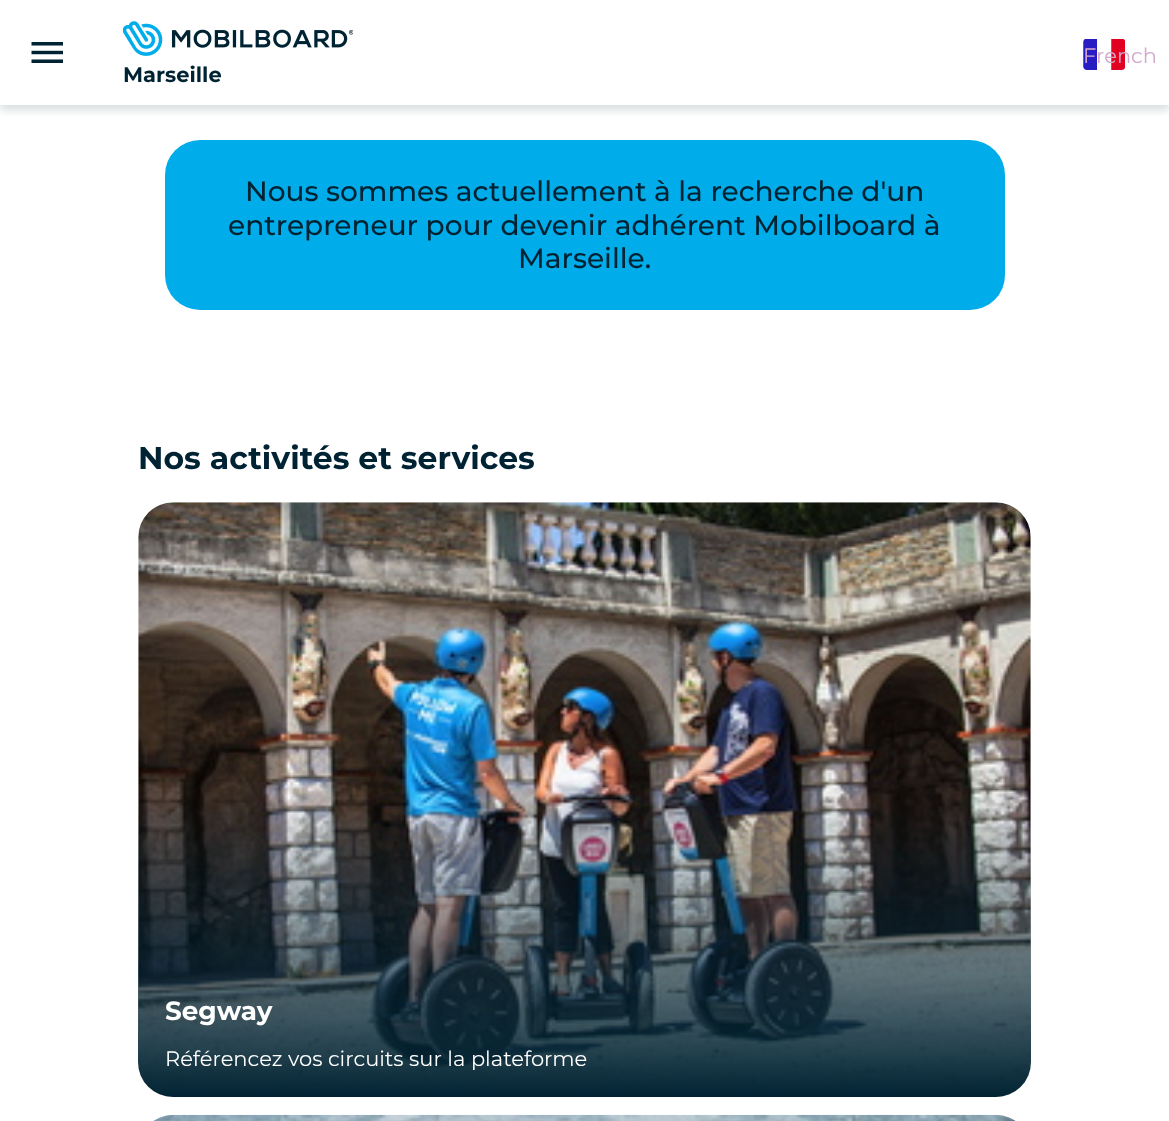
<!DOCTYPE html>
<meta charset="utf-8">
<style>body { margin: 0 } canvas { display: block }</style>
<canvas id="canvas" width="1169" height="1121"></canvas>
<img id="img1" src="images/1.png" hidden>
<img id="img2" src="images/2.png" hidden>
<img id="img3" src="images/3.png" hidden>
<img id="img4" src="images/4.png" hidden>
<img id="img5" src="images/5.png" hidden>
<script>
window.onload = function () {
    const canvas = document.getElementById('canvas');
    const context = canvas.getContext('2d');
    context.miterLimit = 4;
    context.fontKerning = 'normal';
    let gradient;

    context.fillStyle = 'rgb(255, 255, 255)';
    context.fillRect(0, 0, 1169, 1121);
    context.save();
    context.beginPath();
    context.rect(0, 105, 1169, 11);
    context.clip();
    context.fillStyle = 'rgba(0, 35, 51, 0.16)';
    context.filter = 'blur(5px)';
    context.beginPath();
    context.rect(0, 5, 1169, 105);
    context.fill();
    context.filter = 'none';
    context.restore();
    context.drawImage(document.getElementById('img1'), 31, 42, 32, 21);
    context.drawImage(document.getElementById('img2'), 1083, 39, 42, 31);
    context.drawImage(document.getElementById('img3'), 123, 21, 230, 35);
    context.fillStyle = 'rgb(0, 172, 233)';
    context.beginPath();
    context.roundRect(165, 140, 840, 170, 35);
    context.fill();
    context.drawImage(document.getElementById('img4'), 138, 502, 893, 596);
    gradient = context.createLinearGradient(585, 800, 585, 1097);
    gradient.addColorStop(0, 'rgba(0, 35, 51, 0)');
    gradient.addColorStop(1, 'rgb(0, 35, 51)');
    context.fillStyle = gradient;
    context.beginPath();
    context.roundRect(138, 800, 893, 297, [0, 0, 35, 35]);
    context.fill();
    context.drawImage(document.getElementById('img5'), 153, 1114, 863, 7);
    context.font = '21px Montserrat';
    context.fillStyle = 'rgb(210, 169, 205)';
    context.fillText('French', 1083, 63);
    context.font = 'bold 21px Montserrat';
    context.fillStyle = 'rgb(0, 35, 51)';
    context.fillText('Marseille', 123, 82);
    context.font = '500 28px Montserrat';
    context.fillText('Nous sommes actuellement à la recherche d\'un', 245, 201);
    context.fillText('entrepreneur pour devenir adhérent Mobilboard à', 228, 235);
    context.fillText('Marseille.', 518, 268);
    context.font = 'bold 31.5px Montserrat';
    context.fillText('Nos activités et services', 138, 469);
    context.font = 'bold 26.25px Montserrat';
    context.fillStyle = 'rgb(255, 255, 255)';
    context.fillText('Segway', 165, 1020);
    context.font = '21px Montserrat';
    context.fillText('Référencez vos circuits sur la plateforme', 165, 1066);
};
</script>
